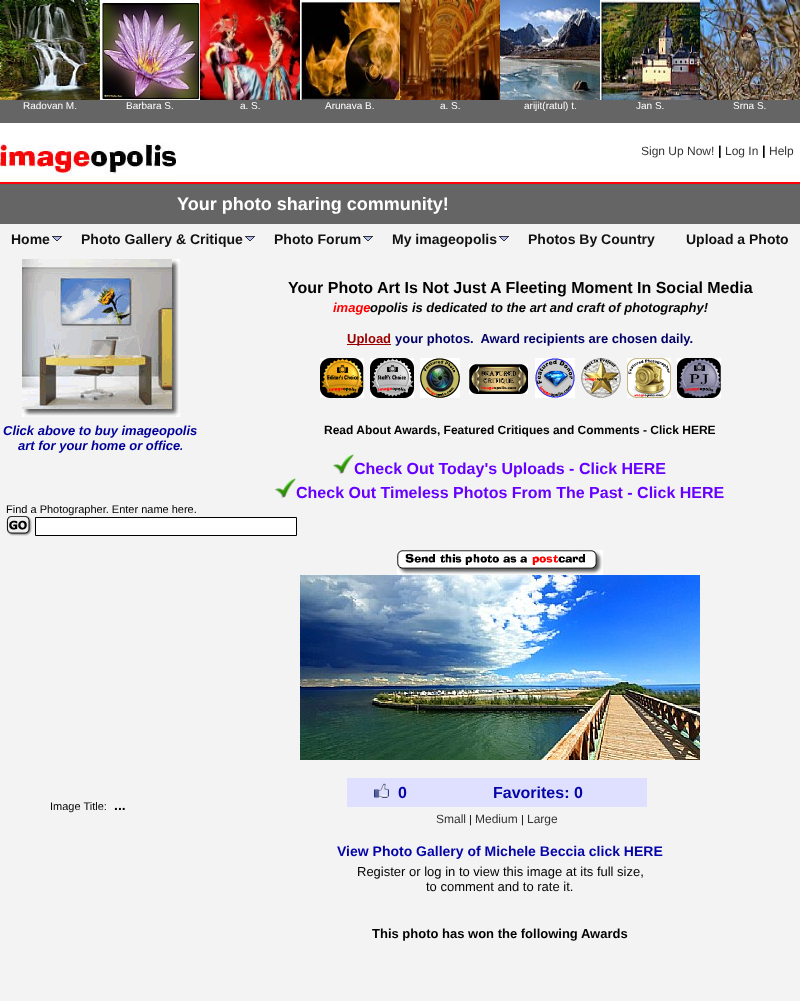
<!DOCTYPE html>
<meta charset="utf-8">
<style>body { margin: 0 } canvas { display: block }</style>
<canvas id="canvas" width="800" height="1001"></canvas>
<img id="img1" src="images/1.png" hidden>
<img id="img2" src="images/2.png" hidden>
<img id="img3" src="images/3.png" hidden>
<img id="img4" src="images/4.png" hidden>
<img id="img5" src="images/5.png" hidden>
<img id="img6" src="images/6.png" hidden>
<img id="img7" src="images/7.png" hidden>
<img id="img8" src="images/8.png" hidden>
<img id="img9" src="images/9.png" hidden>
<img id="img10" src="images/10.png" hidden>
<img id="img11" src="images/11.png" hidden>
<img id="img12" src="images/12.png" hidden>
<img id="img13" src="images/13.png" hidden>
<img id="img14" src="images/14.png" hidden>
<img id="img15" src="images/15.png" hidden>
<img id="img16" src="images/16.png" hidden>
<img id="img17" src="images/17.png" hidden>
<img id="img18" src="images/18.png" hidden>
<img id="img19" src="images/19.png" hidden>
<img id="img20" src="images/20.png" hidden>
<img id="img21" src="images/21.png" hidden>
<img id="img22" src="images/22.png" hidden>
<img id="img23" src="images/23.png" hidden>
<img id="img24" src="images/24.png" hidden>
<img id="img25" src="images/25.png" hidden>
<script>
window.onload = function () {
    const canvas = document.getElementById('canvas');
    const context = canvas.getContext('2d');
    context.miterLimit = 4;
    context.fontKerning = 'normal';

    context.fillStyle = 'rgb(243, 243, 243)';
    context.fillRect(0, 0, 800, 1001);
    context.fillStyle = 'rgb(101, 101, 101)';
    context.fillRect(0, 100, 800, 23);
    context.drawImage(document.getElementById('img1'), 0, 0, 100, 100);
    context.drawImage(document.getElementById('img2'), 100, 0, 100, 100);
    context.drawImage(document.getElementById('img3'), 200, 0, 100, 100);
    context.drawImage(document.getElementById('img4'), 300, 0, 100, 100);
    context.drawImage(document.getElementById('img5'), 400, 0, 100, 100);
    context.drawImage(document.getElementById('img6'), 500, 0, 100, 100);
    context.drawImage(document.getElementById('img7'), 600, 0, 100, 100);
    context.drawImage(document.getElementById('img8'), 700, 0, 100, 100);
    context.fillStyle = 'rgb(255, 255, 255)';
    context.fillRect(0, 123, 800, 20);
    context.drawImage(document.getElementById('img9'), 176, 143, 624, 81);
    context.drawImage(document.getElementById('img10'), 0, 143, 176, 81);
    context.fillStyle = 'rgb(49, 49, 49)';
    context.fillRect(52, 236, 10, 1);
    context.fillStyle = 'rgb(175, 187, 241)';
    context.fillRect(54, 237, 6, 1);
    context.fillStyle = 'rgb(49, 49, 49)';
    context.fillRect(60, 237, 1, 1);
    context.fillRect(53, 237, 1, 1);
    context.fillStyle = 'rgb(175, 187, 241)';
    context.fillRect(55, 238, 4, 1);
    context.fillStyle = 'rgb(49, 49, 49)';
    context.fillRect(59, 238, 1, 1);
    context.fillRect(54, 238, 1, 1);
    context.fillStyle = 'rgb(175, 187, 241)';
    context.fillRect(56, 239, 2, 1);
    context.fillStyle = 'rgb(49, 49, 49)';
    context.fillRect(58, 239, 1, 1);
    context.fillRect(55, 239, 1, 1);
    context.fillRect(56, 240, 2, 1);
    context.fillRect(245, 236, 10, 1);
    context.fillStyle = 'rgb(175, 187, 241)';
    context.fillRect(247, 237, 6, 1);
    context.fillStyle = 'rgb(49, 49, 49)';
    context.fillRect(253, 237, 1, 1);
    context.fillRect(246, 237, 1, 1);
    context.fillStyle = 'rgb(175, 187, 241)';
    context.fillRect(248, 238, 4, 1);
    context.fillStyle = 'rgb(49, 49, 49)';
    context.fillRect(252, 238, 1, 1);
    context.fillRect(247, 238, 1, 1);
    context.fillStyle = 'rgb(175, 187, 241)';
    context.fillRect(249, 239, 2, 1);
    context.fillStyle = 'rgb(49, 49, 49)';
    context.fillRect(251, 239, 1, 1);
    context.fillRect(248, 239, 1, 1);
    context.fillRect(249, 240, 2, 1);
    context.fillRect(363, 236, 10, 1);
    context.fillStyle = 'rgb(175, 187, 241)';
    context.fillRect(365, 237, 6, 1);
    context.fillStyle = 'rgb(49, 49, 49)';
    context.fillRect(371, 237, 1, 1);
    context.fillRect(364, 237, 1, 1);
    context.fillStyle = 'rgb(175, 187, 241)';
    context.fillRect(366, 238, 4, 1);
    context.fillStyle = 'rgb(49, 49, 49)';
    context.fillRect(370, 238, 1, 1);
    context.fillRect(365, 238, 1, 1);
    context.fillStyle = 'rgb(175, 187, 241)';
    context.fillRect(367, 239, 2, 1);
    context.fillStyle = 'rgb(49, 49, 49)';
    context.fillRect(369, 239, 1, 1);
    context.fillRect(366, 239, 1, 1);
    context.fillRect(367, 240, 2, 1);
    context.fillRect(499, 236, 10, 1);
    context.fillStyle = 'rgb(175, 187, 241)';
    context.fillRect(501, 237, 6, 1);
    context.fillStyle = 'rgb(49, 49, 49)';
    context.fillRect(507, 237, 1, 1);
    context.fillRect(500, 237, 1, 1);
    context.fillStyle = 'rgb(175, 187, 241)';
    context.fillRect(502, 238, 4, 1);
    context.fillStyle = 'rgb(49, 49, 49)';
    context.fillRect(506, 238, 1, 1);
    context.fillRect(501, 238, 1, 1);
    context.fillStyle = 'rgb(175, 187, 241)';
    context.fillRect(503, 239, 2, 1);
    context.fillStyle = 'rgb(49, 49, 49)';
    context.fillRect(505, 239, 1, 1);
    context.fillRect(502, 239, 1, 1);
    context.fillRect(503, 240, 2, 1);
    context.drawImage(document.getElementById('img11'), 22, 259, 158, 158);
    context.fillStyle = 'rgb(153, 0, 0)';
    context.fillRect(347, 344, 44, 1);
    context.drawImage(document.getElementById('img12'), 320, 358, 44, 40);
    context.drawImage(document.getElementById('img13'), 370, 358, 44, 40);
    context.drawImage(document.getElementById('img14'), 420, 358, 40, 40);
    context.drawImage(document.getElementById('img15'), 469, 364, 59, 30);
    context.drawImage(document.getElementById('img16'), 535, 358, 40, 40);
    context.drawImage(document.getElementById('img17'), 581, 358, 40, 40);
    context.drawImage(document.getElementById('img18'), 627, 358, 44, 40);
    context.drawImage(document.getElementById('img19'), 677, 358, 44, 40);
    context.drawImage(document.getElementById('img20'), 333, 454, 21, 20);
    context.drawImage(document.getElementById('img21'), 275, 478, 21, 20);
    context.drawImage(document.getElementById('img22'), 6, 516, 26, 20);
    context.fillStyle = 'rgb(255, 255, 255)';
    context.beginPath();
    context.rect(35.5, 517.5, 261, 18);
    context.fill();
    context.strokeStyle = 'rgb(0, 0, 0)';
    context.stroke();
    context.drawImage(document.getElementById('img23'), 397, 550, 206, 25);
    context.drawImage(document.getElementById('img24'), 300, 575, 400, 185);
    context.fillStyle = 'rgb(223, 223, 255)';
    context.fillRect(347, 778, 300, 29);
    context.drawImage(document.getElementById('img25'), 374, 783, 15, 15);
    context.font = '10px Liberation Sans';
    context.fillStyle = 'rgb(255, 255, 255)';
    context.fillText('Radovan M.', 23, 109);
    context.fillText('Barbara S.', 126, 109);
    context.fillText('a. S.', 240, 109);
    context.fillText('Arunava B.', 325, 109);
    context.fillText('a. S.', 440, 109);
    context.fillText('arijit(ratul) t.', 524, 109);
    context.fillText('Jan S.', 636, 109);
    context.fillText('Srna S.', 733, 109);
    context.font = '12px Liberation Sans';
    context.fillStyle = 'rgb(51, 51, 51)';
    context.fillText('Sign Up Now!', 641, 155);
    context.font = 'bold 13px Liberation Sans';
    context.fillStyle = 'rgb(0, 0, 0)';
    context.fillText('|', 718, 155);
    context.font = '12px Liberation Sans';
    context.fillStyle = 'rgb(51, 51, 51)';
    context.fillText('Log In', 725, 155);
    context.font = 'bold 13px Liberation Sans';
    context.fillStyle = 'rgb(0, 0, 0)';
    context.fillText('|', 762, 155);
    context.font = '12px Liberation Sans';
    context.fillStyle = 'rgb(51, 51, 51)';
    context.fillText('Help', 769, 155);
    context.font = 'bold 18px Liberation Sans';
    context.fillStyle = 'rgb(255, 255, 255)';
    context.fillText('Your photo sharing community!', 177, 210);
    context.font = 'bold 14px Liberation Sans';
    context.fillStyle = 'rgb(17, 17, 17)';
    context.fillText('Home', 11, 244);
    context.fillText('Photo Gallery & Critique', 81, 244);
    context.fillText('Photo Forum', 274, 244);
    context.fillText('My imageopolis', 392, 244);
    context.fillText('Photos By Country', 528, 244);
    context.fillText('Upload a Photo', 686, 244);
    context.font = 'bold 16px Liberation Sans';
    context.fillStyle = 'rgb(0, 0, 0)';
    context.fillText('Your Photo Art Is Not Just A Fleeting Moment In Social Media', 288, 293);
    context.font = 'italic bold 13px Liberation Sans';
    context.fillStyle = 'rgb(255, 0, 0)';
    context.fillText('image', 333, 312);
    context.fillStyle = 'rgb(0, 0, 0)';
    context.fillText('opolis is dedicated to the art and craft of photography!', 370, 312);
    context.font = 'bold 13px Liberation Sans';
    context.fillStyle = 'rgb(153, 0, 0)';
    context.fillText('Upload', 347, 343);
    context.fillStyle = 'rgb(0, 0, 102)';
    context.fillText('your photos.  Award recipients are chosen daily.', 395, 343);
    context.font = 'italic bold 13px Liberation Sans';
    context.fillStyle = 'rgb(0, 0, 153)';
    context.fillText('Click above to buy imageopolis', 3, 435);
    context.fillText('art for your home or office', 18, 450);
    context.font = 'italic bold 11px Liberation Sans';
    context.fillText('.', 180, 450);
    context.font = 'bold 12px Liberation Sans';
    context.fillStyle = 'rgb(0, 0, 0)';
    context.fillText('Read About Awards, Featured Critiques and Comments - Click HERE', 324, 434);
    context.font = 'bold 16px Liberation Sans';
    context.fillStyle = 'rgb(102, 0, 255)';
    context.fillText('Check Out Today\'s Uploads - Click HERE', 354, 474);
    context.fillText('Check Out Timeless Photos From The Past - Click HERE', 296, 498);
    context.font = '11px Liberation Sans';
    context.fillStyle = 'rgb(0, 0, 0)';
    context.fillText('Find a Photographer. Enter name here.', 6, 513);
    context.fillText('Image Title:', 50, 810);
    context.font = 'bold 14px Liberation Sans';
    context.fillText('...', 114, 810);
    context.font = 'bold 16px Liberation Sans';
    context.fillStyle = 'rgb(4, 4, 168)';
    context.fillText('0', 398, 798);
    context.fillText('Favorites: 0', 493, 798);
    context.font = '12px Liberation Sans';
    context.fillStyle = 'rgb(51, 51, 51)';
    context.fillText('Small', 436, 823);
    context.font = '11px Liberation Sans';
    context.fillStyle = 'rgb(0, 0, 0)';
    context.fillText('|', 469, 823);
    context.font = '12px Liberation Sans';
    context.fillStyle = 'rgb(51, 51, 51)';
    context.fillText('Medium', 475, 823);
    context.font = '11px Liberation Sans';
    context.fillStyle = 'rgb(0, 0, 0)';
    context.fillText('|', 521, 823);
    context.font = '12px Liberation Sans';
    context.fillStyle = 'rgb(51, 51, 51)';
    context.fillText('Large', 527, 823);
    context.font = 'bold 14px Liberation Sans';
    context.fillStyle = 'rgb(4, 4, 168)';
    context.fillText('View Photo Gallery of Michele Beccia click HERE', 337, 856);
    context.font = '13px Liberation Sans';
    context.fillStyle = 'rgb(0, 0, 0)';
    context.fillText('Register or log in to view this image at its full size,', 357, 876);
    context.fillText('to comment and to rate it.', 426, 891);
    context.font = 'bold 13px Liberation Sans';
    context.fillText('This photo has won the following Awards', 372, 938);
};
</script>
